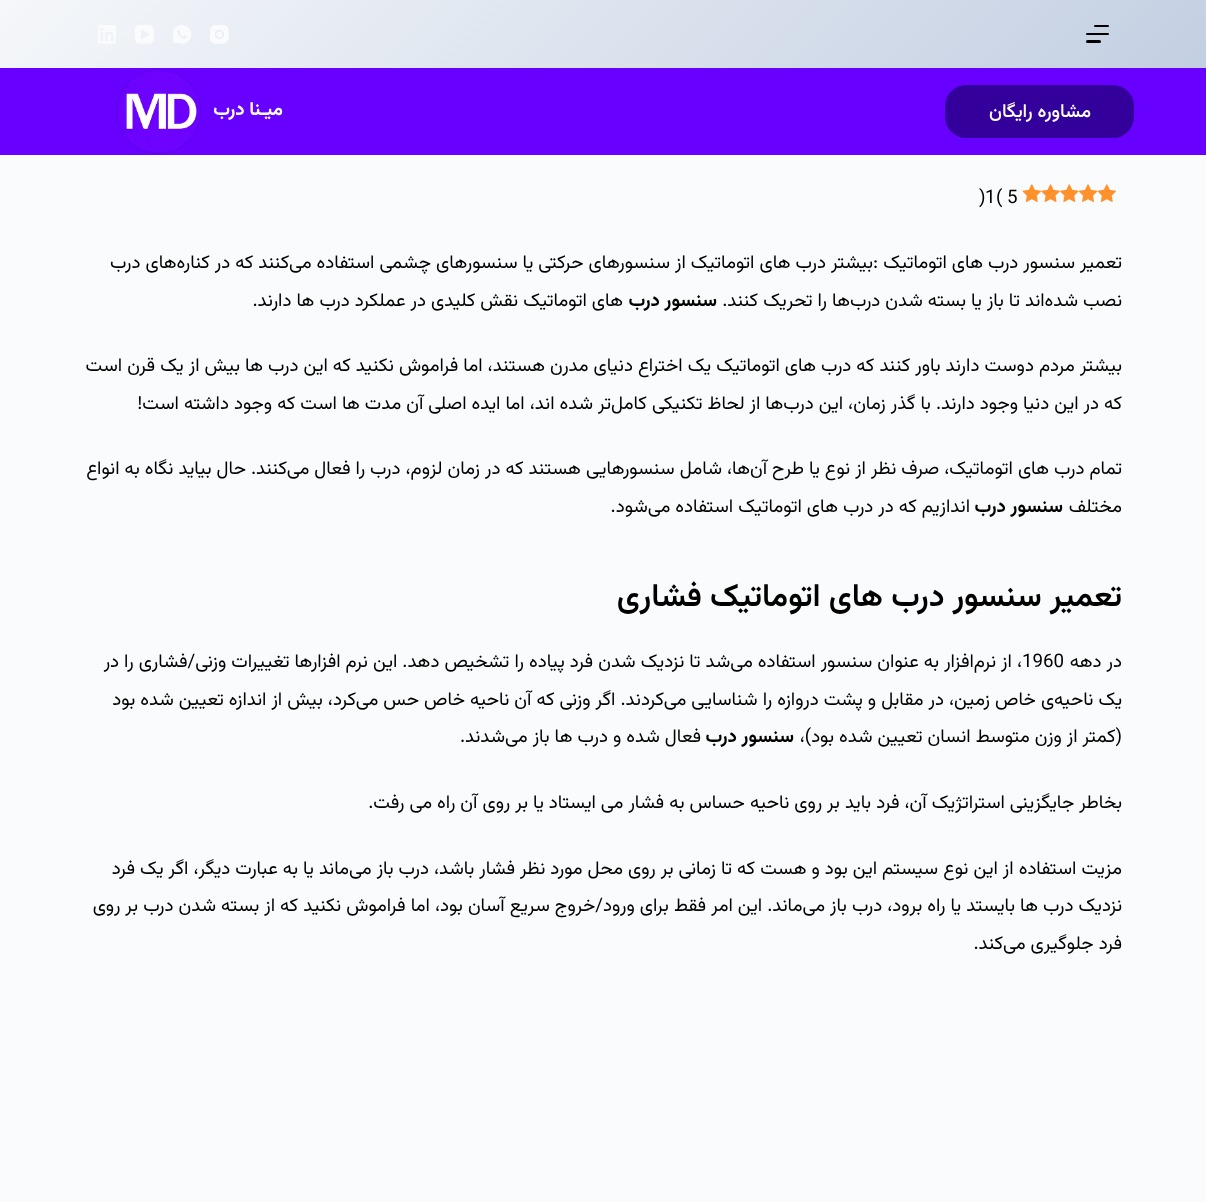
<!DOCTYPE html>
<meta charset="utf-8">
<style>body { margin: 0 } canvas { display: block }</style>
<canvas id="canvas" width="1206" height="1202"></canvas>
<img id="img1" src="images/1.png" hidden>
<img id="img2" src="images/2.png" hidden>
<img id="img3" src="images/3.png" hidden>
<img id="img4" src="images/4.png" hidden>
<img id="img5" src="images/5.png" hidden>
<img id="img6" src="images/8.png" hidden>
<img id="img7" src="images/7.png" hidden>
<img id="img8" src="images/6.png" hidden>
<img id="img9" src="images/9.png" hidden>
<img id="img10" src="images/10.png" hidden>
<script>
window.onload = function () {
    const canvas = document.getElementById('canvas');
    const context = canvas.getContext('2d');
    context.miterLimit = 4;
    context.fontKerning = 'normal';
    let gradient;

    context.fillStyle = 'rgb(250, 251, 252)';
    context.fillRect(0, 0, 1206, 1202);
    gradient = context.createLinearGradient(285, -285, 922, 352);
    gradient.addColorStop(0, 'rgb(245, 247, 250)');
    gradient.addColorStop(1, 'rgb(195, 207, 226)');
    context.fillStyle = gradient;
    context.fillRect(0, 0, 1206, 68);
    context.fillStyle = 'rgb(0, 0, 0)';
    context.beginPath();
    context.roundRect(1094, 25, 15, 2, 1);
    context.fill();
    context.beginPath();
    context.roundRect(1086, 33, 23, 2, 1);
    context.fill();
    context.beginPath();
    context.roundRect(1086, 40, 15, 3, 1.5);
    context.fill();
    context.drawImage(document.getElementById('img1'), 210, 25, 19, 19);
    context.drawImage(document.getElementById('img2'), 173, 25, 18, 19);
    context.drawImage(document.getElementById('img3'), 135, 25, 19, 19);
    context.drawImage(document.getElementById('img4'), 98, 25, 18, 19);
    context.fillStyle = 'rgb(104, 0, 255)';
    context.fillRect(0, 68, 1206, 87);
    context.fillStyle = 'rgb(52, 0, 156)';
    context.beginPath();
    context.roundRect(945, 85, 189, 53, 21);
    context.fill();
    context.drawImage(document.getElementById('img5'), 116, 69, 86, 85);
    context.drawImage(document.getElementById('img6'), 1060, 184, 19, 18);
    context.drawImage(document.getElementById('img7'), 1078, 184, 20, 18);
    context.drawImage(document.getElementById('img8'), 1097, 184, 19, 18);
    context.drawImage(document.getElementById('img9'), 1041, 184, 19, 18);
    context.drawImage(document.getElementById('img10'), 1022, 184, 19, 18);
    context.direction = 'rtl';
    context.font = '500 18.75px Vazirmatn';
    context.fillStyle = 'rgb(255, 255, 255)';
    context.fillText('مشاوره رایگان', 1091, 117);
    context.font = 'bold 18.75px Vazirmatn';
    context.fillText('میـنا درب', 283, 115);
    context.direction = 'ltr';
    context.font = '18.75px Vazirmatn';
    context.fillStyle = 'rgb(0, 0, 0)';
    context.fillText('5', 1007, 203);
    context.fillText('(', 996, 203);
    context.fillText('1', 985, 203);
    context.fillText(')', 979, 203);
    context.direction = 'rtl';
    context.fillText('تعمیر سنسور درب های اتوماتیک :بیشتر درب های اتوماتیک از سنسورهای حرکتی یا سنسورهای چشمی استفاده می‌کنند که در کناره‌های درب', 1122, 268);
    context.fillText('نصب شده‌اند تا باز یا بسته شدن درب‌ها را تحریک کنند.', 1122, 306);
    context.font = 'bold 18.75px Vazirmatn';
    context.fillText('سنسور درب', 717, 306);
    context.font = '18.75px Vazirmatn';
    context.fillText('های اتوماتیک نقش کلیدی در عملکرد درب ها دارند.', 623, 306);
    context.fillText('بیشتر مردم دوست دارند باور کنند که درب های اتوماتیک یک اختراع دنیای مدرن هستند، اما فراموش نکنید که این درب ها بیش از یک قرن است', 1122, 371);
    context.fillText('که در این دنیا وجود دارند. با گذر زمان، این درب‌ها از لحاظ تکنیکی کامل‌تر شده اند، اما ایده اصلی آن مدت ها است که وجود داشته است!', 1122, 409);
    context.fillText('تمام درب های اتوماتیک، صرف نظر از نوع یا طرح آن‌ها، شامل سنسورهایی هستند که در زمان لزوم، درب را فعال می‌کنند. حال بیاید نگاه به انواع', 1122, 474);
    context.fillText('مختلف', 1122, 512);
    context.font = 'bold 18.75px Vazirmatn';
    context.fillText('سنسور درب', 1063, 512);
    context.font = '18.75px Vazirmatn';
    context.fillText('اندازیم که در درب های اتوماتیک استفاده می‌شود.', 970, 512);
    context.font = '600 32px Vazirmatn';
    context.fillText('تعمیر سنسور درب های اتوماتیک فشاری', 1122, 606);
    context.font = '18.75px Vazirmatn';
    context.fillText('در دهه', 1122, 667);
    context.direction = 'ltr';
    context.fillText('1960', 1022, 667);
    context.direction = 'rtl';
    context.fillText('، از نرم‌افزار به عنوان سنسور استفاده می‌شد تا نزدیک شدن فرد پیاده را تشخیص دهد. این نرم افزارها تغییرات وزنی/فشاری را در', 1022, 667);
    context.fillText('یک ناحیه‌ی خاص زمین، در مقابل و پشت دروازه را شناسایی می‌کردند. اگر وزنی که آن ناحیه خاص حس می‌کرد، بیش از اندازه تعیین شده بود', 1122, 705);
    context.fillText('(کمتر از وزن متوسط انسان تعیین شده بود)،', 1122, 742);
    context.font = 'bold 18.75px Vazirmatn';
    context.fillText('سنسور درب', 794, 742);
    context.font = '18.75px Vazirmatn';
    context.fillText('فعال شده و درب ها باز می‌شدند.', 701, 742);
    context.fillText('بخاطر جایگزینی استراتژیک آن، فرد باید بر روی ناحیه حساس به فشار می ایستاد یا بر روی آن راه می رفت.', 1122, 808);
    context.fillText('مزیت استفاده از این نوع سیستم این بود و هست که تا زمانی بر روی محل مورد نظر فشار باشد، درب باز می‌ماند یا به عبارت دیگر، اگر یک فرد', 1122, 874);
    context.fillText('نزدیک درب ها بایستد یا راه برود، درب باز می‌ماند. این امر فقط برای ورود/خروج سریع آسان بود، اما فراموش نکنید که از بسته شدن درب بر روی', 1122, 911);
    context.fillText('فرد جلوگیری می‌کند.', 1122, 949);
};
</script>
